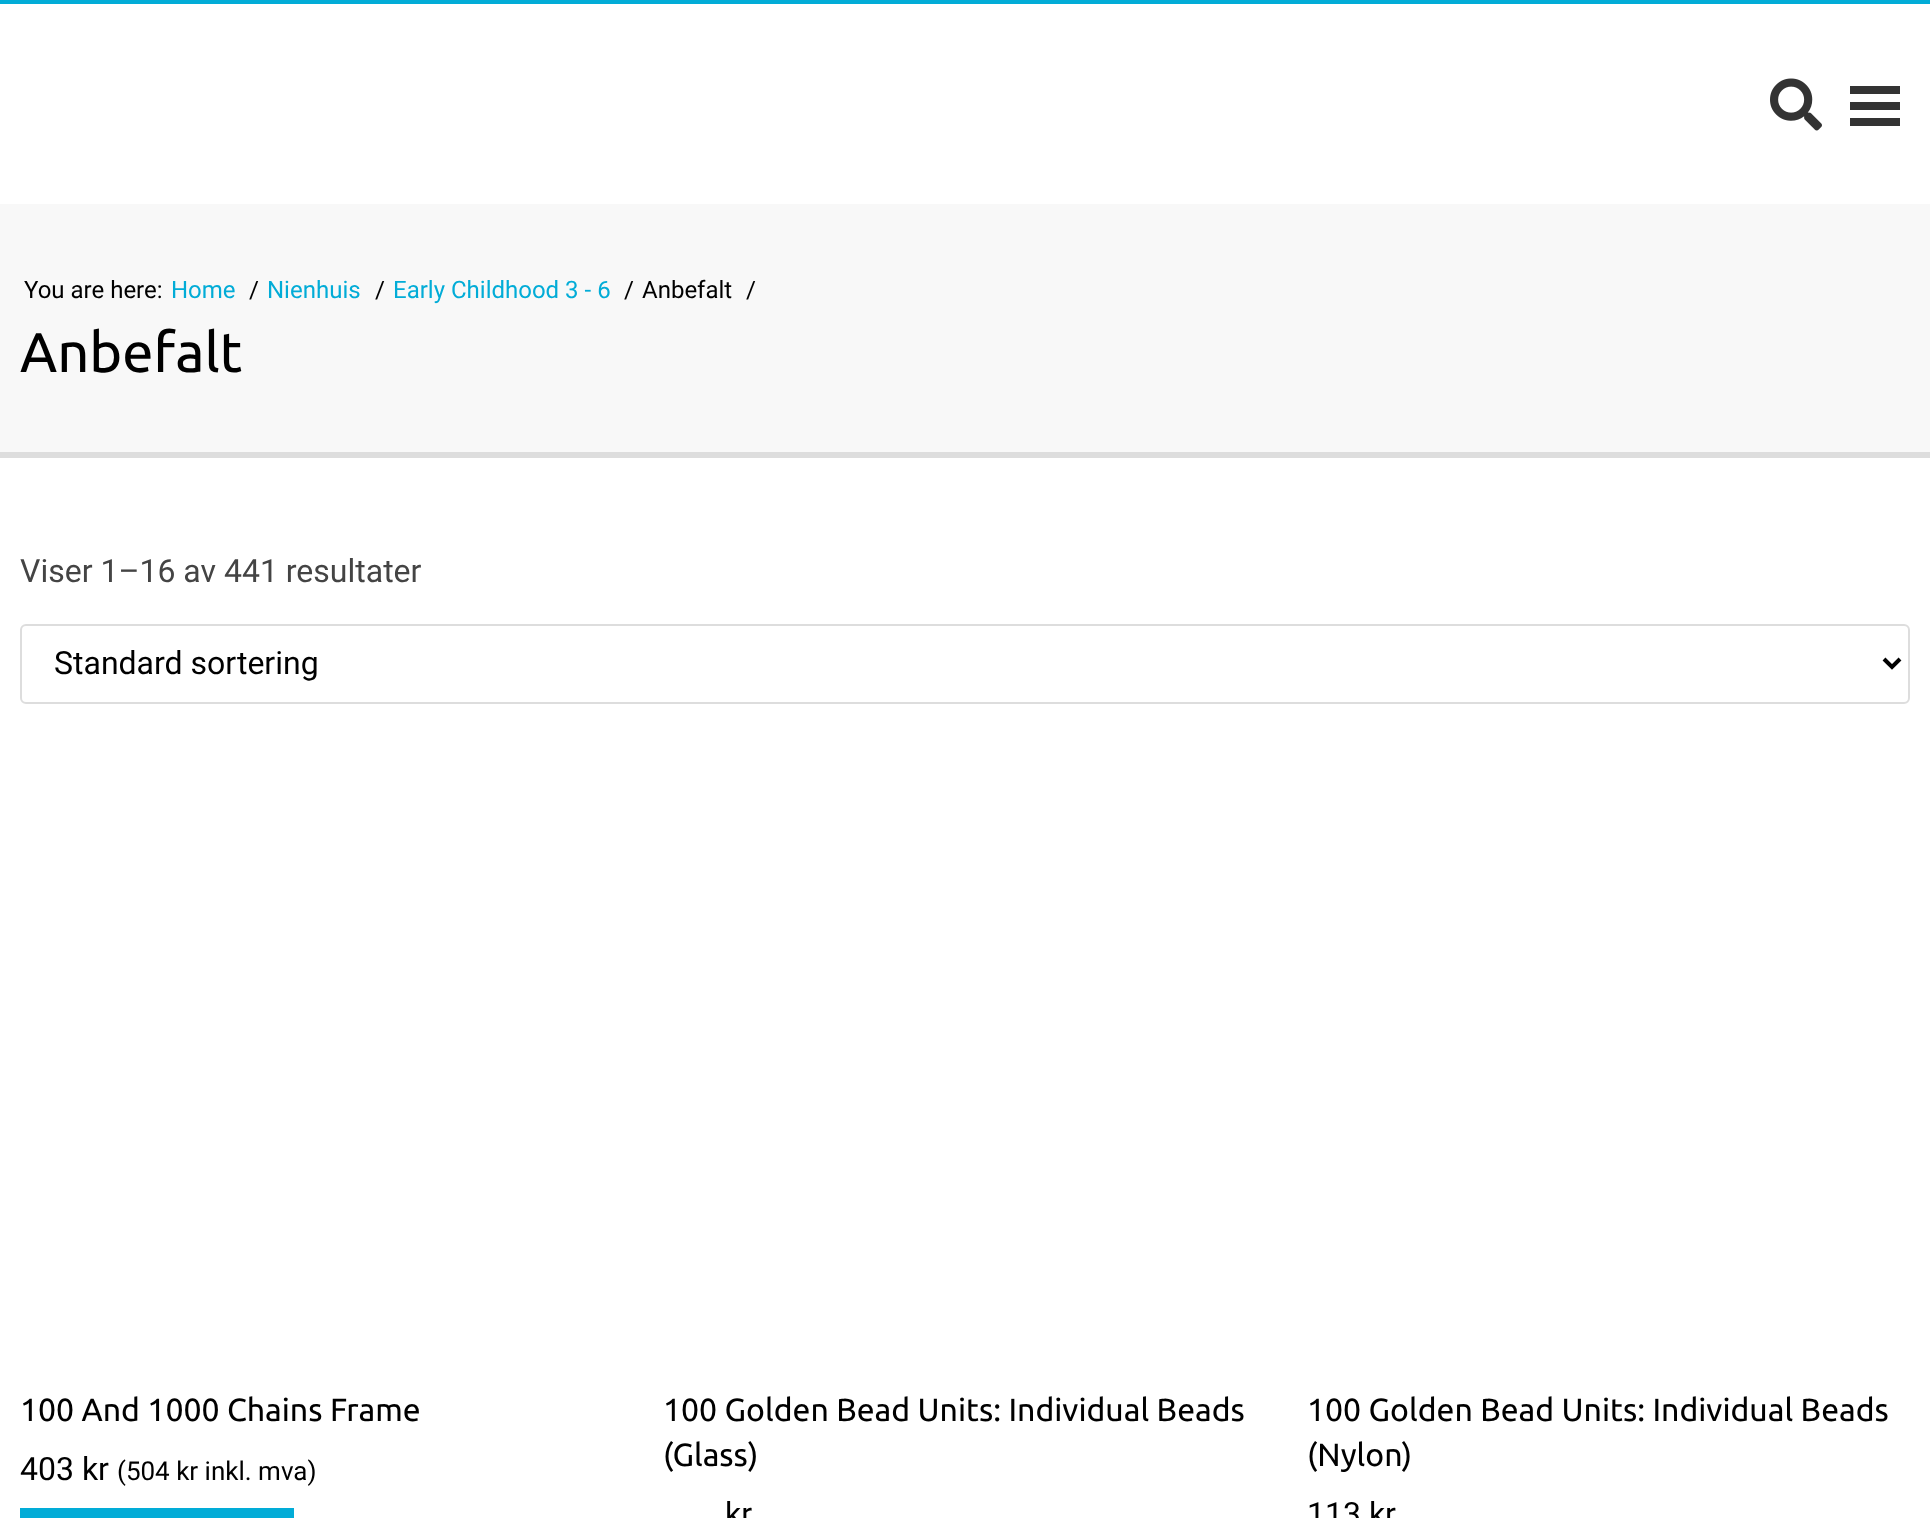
<!DOCTYPE html>
<meta charset="utf-8">
<style>body { margin: 0 } canvas { display: block }</style>
<canvas id="canvas" width="1930" height="1518"></canvas>
<img id="img1" src="images/1.png" hidden>
<script>
window.onload = function () {
    const canvas = document.getElementById('canvas');
    const context = canvas.getContext('2d');
    context.miterLimit = 4;
    context.fontKerning = 'normal';

    context.fillStyle = 'rgb(255, 255, 255)';
    context.fillRect(0, 0, 1930, 1518);
    context.fillStyle = 'rgb(2, 172, 215)';
    context.fillRect(0, 0, 1930, 4);
    context.drawImage(document.getElementById('img1'), 1770, 78, 52, 53);
    context.fillStyle = 'rgb(51, 51, 51)';
    context.fillRect(1850, 86, 50, 8);
    context.fillRect(1850, 102, 50, 8);
    context.fillRect(1850, 118, 50, 8);
    context.fillStyle = 'rgb(248, 248, 248)';
    context.fillRect(0, 204, 1930, 248);
    context.fillStyle = 'rgb(221, 221, 221)';
    context.fillRect(0, 452, 1930, 6);
    context.beginPath();
    context.roundRect(21, 625, 1888, 78, 5);
    context.strokeStyle = 'rgb(221, 221, 221)';
    context.lineWidth = 2;
    context.stroke();
    context.beginPath();
    context.moveTo(1884, 659);
    context.lineTo(1892, 667);
    context.lineTo(1900, 659);
    context.strokeStyle = 'rgb(0, 0, 0)';
    context.lineWidth = 4;
    context.stroke();
    context.fillStyle = 'rgb(2, 172, 215)';
    context.fillRect(20, 1508, 274, 10);
    context.font = '24px Roboto';
    context.fillStyle = 'rgb(0, 0, 0)';
    context.fillText('You are here:', 24, 298);
    context.fillStyle = 'rgb(2, 172, 215)';
    context.fillText('Home', 171, 298);
    context.fillStyle = 'rgb(0, 0, 0)';
    context.fillText('/', 249, 298);
    context.fillStyle = 'rgb(2, 172, 215)';
    context.fillText('Nienhuis', 267, 298);
    context.fillStyle = 'rgb(0, 0, 0)';
    context.fillText('/', 375, 298);
    context.fillStyle = 'rgb(2, 172, 215)';
    context.fillText('Early Childhood 3 - 6', 393, 298);
    context.fillStyle = 'rgb(0, 0, 0)';
    context.fillText('/', 624, 298);
    context.fillText('Anbefalt', 642, 298);
    context.fillText('/', 746, 298);
    context.font = '56px Ubuntu';
    context.fillText('Anbefalt', 20, 372);
    context.font = '32px Roboto';
    context.fillStyle = 'rgb(68, 68, 68)';
    context.fillText('Viser 1–16 av 441 resultater', 20, 582);
    context.fillStyle = 'rgb(0, 0, 0)';
    context.fillText('Standard sortering', 54, 674);
    context.font = '32px Ubuntu';
    context.fillText('100 And 1000 Chains Frame', 20, 1421);
    context.font = '32px Roboto';
    context.fillText('403 kr', 20, 1480);
    context.font = '26px Roboto';
    context.fillText('(504 kr inkl. mva)', 117, 1480);
    context.font = '32px Ubuntu';
    context.fillText('100 Golden Bead Units: Individual Beads', 663, 1421);
    context.fillText('(Glass)', 663, 1466);
    context.font = '32px Roboto';
    context.fillText('kr', 725, 1525);
    context.font = '32px Ubuntu';
    context.fillText('100 Golden Bead Units: Individual Beads', 1307, 1421);
    context.fillText('(Nylon)', 1307, 1466);
    context.font = '32px Roboto';
    context.fillText('113 kr', 1307, 1525);
};
</script>
